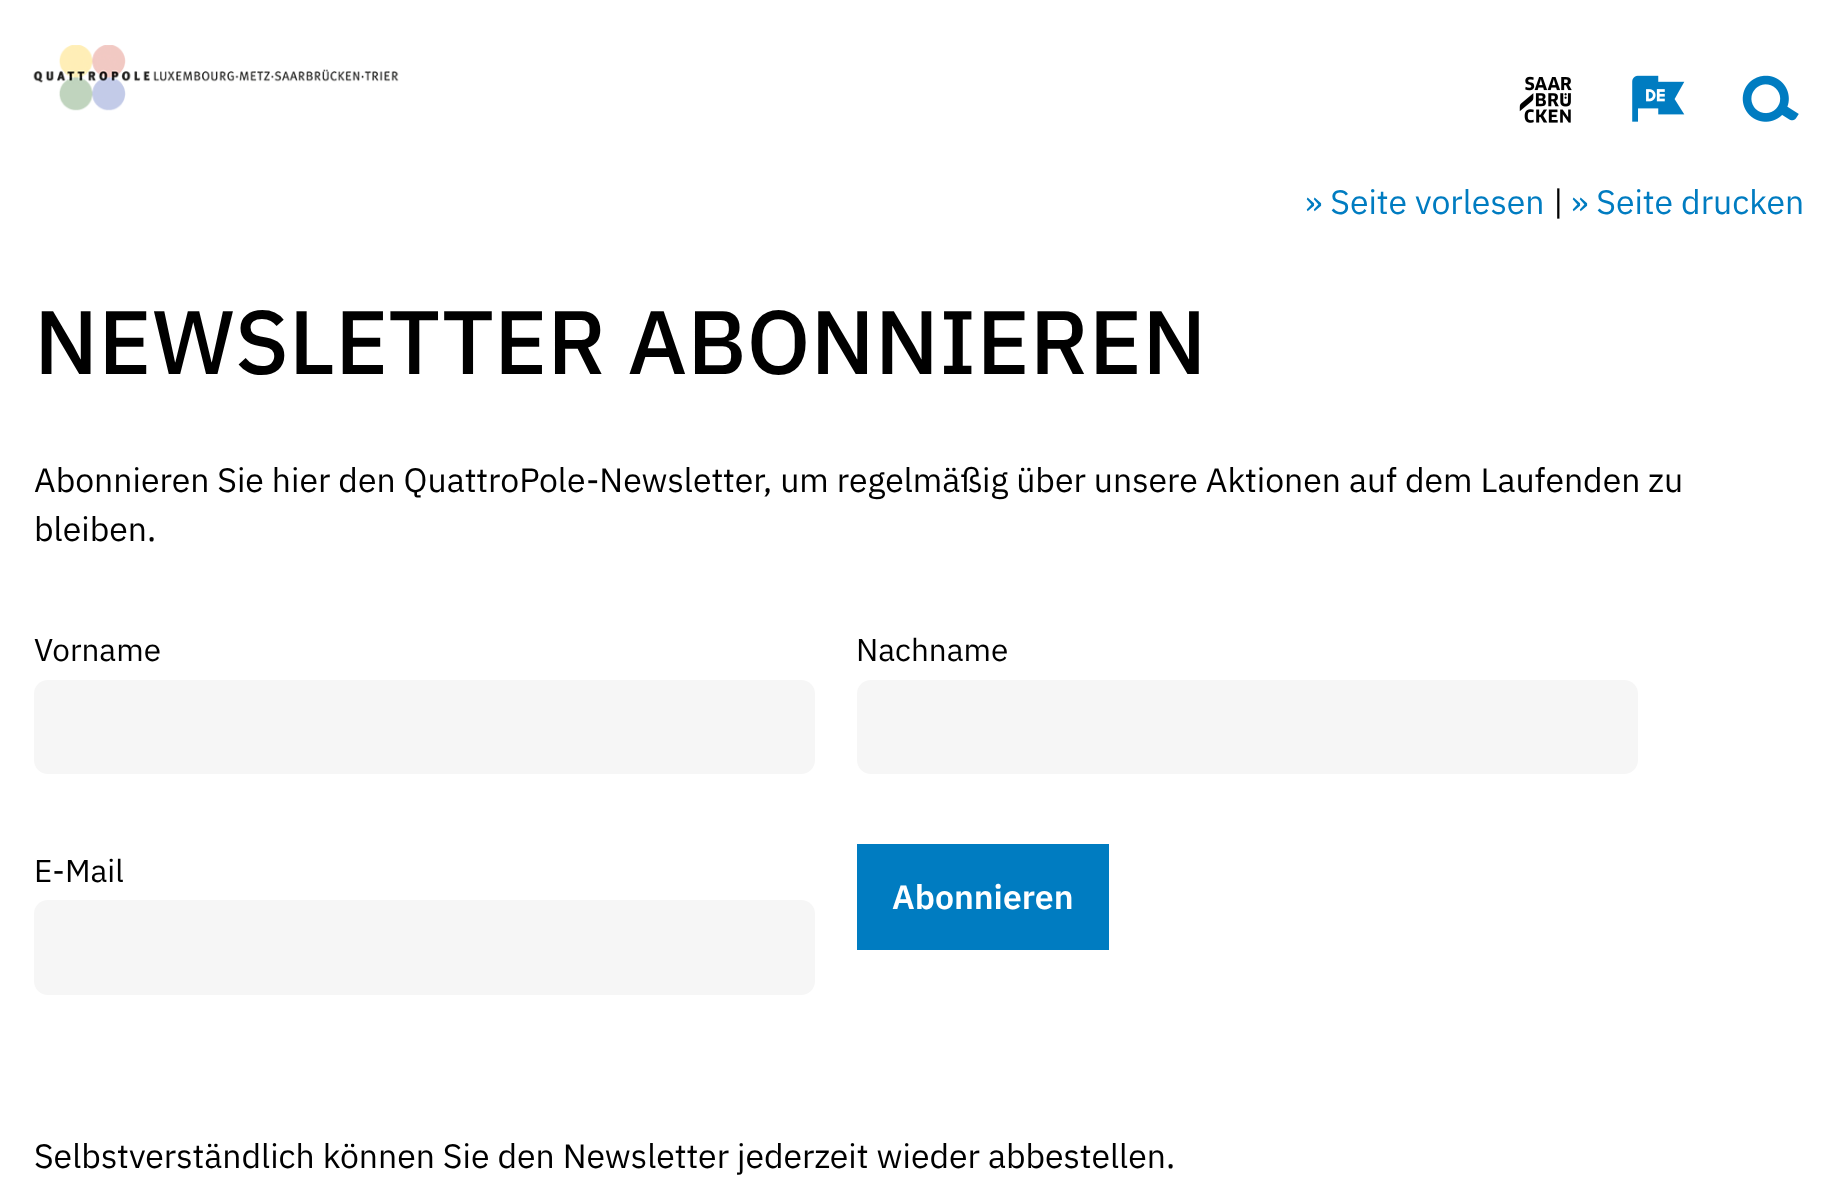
<!DOCTYPE html>
<meta charset="utf-8">
<style>body { margin: 0 } canvas { display: block }</style>
<canvas id="canvas" width="1837" height="1194"></canvas>
<img id="img1" src="images/1.png" hidden>
<img id="img2" src="images/2.png" hidden>
<img id="img3" src="images/3.png" hidden>
<img id="img4" src="images/4.png" hidden>
<script>
window.onload = function () {
    const canvas = document.getElementById('canvas');
    const context = canvas.getContext('2d');
    context.miterLimit = 4;
    context.fontKerning = 'normal';

    context.fillStyle = 'rgb(255, 255, 255)';
    context.fillRect(0, 0, 1837, 1194);
    context.drawImage(document.getElementById('img1'), 33, 45, 366, 66);
    context.drawImage(document.getElementById('img2'), 1519, 76, 53, 47);
    context.drawImage(document.getElementById('img3'), 1632, 75, 53, 47);
    context.drawImage(document.getElementById('img4'), 1742, 75, 57, 47);
    context.fillStyle = 'rgb(246, 246, 246)';
    context.beginPath();
    context.roundRect(34, 680, 781, 94, 14);
    context.fill();
    context.beginPath();
    context.roundRect(857, 680, 781, 94, 14);
    context.fill();
    context.beginPath();
    context.roundRect(34, 900, 781, 95, 14);
    context.fill();
    context.fillStyle = 'rgb(0, 124, 193)';
    context.fillRect(857, 844, 252, 106);
    context.font = '33.75px IBM Plex Sans';
    context.fillText('» Seite vorlesen', 1305, 214);
    context.fillStyle = 'rgb(0, 0, 0)';
    context.fillText('|', 1553, 214);
    context.fillStyle = 'rgb(0, 124, 193)';
    context.fillText('» Seite drucken', 1571, 214);
    context.font = '500 90px IBM Plex Sans';
    context.fillStyle = 'rgb(0, 0, 0)';
    context.fillText('NEWSLETTER ABONNIEREN', 34, 374);
    context.font = '33.75px IBM Plex Sans';
    context.fillText('Abonnieren Sie hier den QuattroPole-Newsletter, um regelmäßig über unsere Aktionen auf dem Laufenden zu', 34, 492);
    context.fillText('bleiben.', 34, 541);
    context.font = '31.5px IBM Plex Sans';
    context.fillText('Vorname', 34, 661);
    context.fillText('Nachname', 856, 661);
    context.fillText('E-Mail', 34, 882);
    context.font = '600 33.75px IBM Plex Sans';
    context.fillStyle = 'rgb(255, 255, 255)';
    context.fillText('Abonnieren', 892, 909);
    context.font = '33.75px IBM Plex Sans';
    context.fillStyle = 'rgb(0, 0, 0)';
    context.fillText('Selbstverständlich können Sie den Newsletter jederzeit wieder abbestellen.', 34, 1168);
};
</script>
